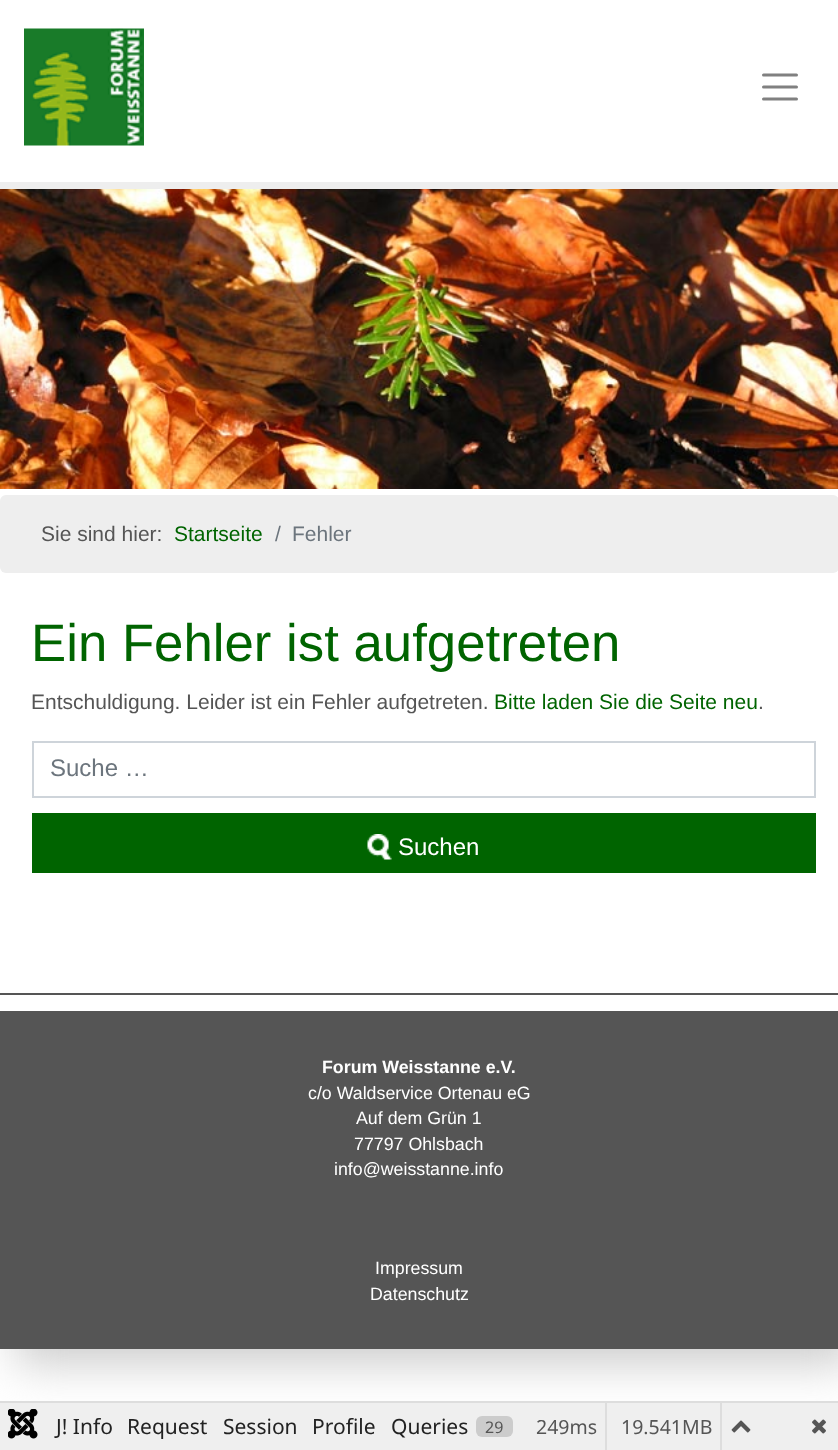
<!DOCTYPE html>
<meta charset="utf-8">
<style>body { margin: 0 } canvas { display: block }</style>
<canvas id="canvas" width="838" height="1450"></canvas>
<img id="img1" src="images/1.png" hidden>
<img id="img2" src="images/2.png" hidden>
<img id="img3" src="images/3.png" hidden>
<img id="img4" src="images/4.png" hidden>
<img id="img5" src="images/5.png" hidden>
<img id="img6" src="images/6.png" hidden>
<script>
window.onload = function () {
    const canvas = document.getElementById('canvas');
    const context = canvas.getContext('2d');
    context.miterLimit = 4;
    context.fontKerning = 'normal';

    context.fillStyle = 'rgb(255, 255, 255)';
    context.fillRect(0, 0, 838, 1450);
    context.save();
    context.beginPath();
    context.rect(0, 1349, 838, 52);
    context.clip();
    context.fillStyle = 'rgb(204, 204, 204)';
    context.filter = 'blur(22.5px)';
    context.beginPath();
    context.rect(15, 15, 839, 1349);
    context.fill();
    context.filter = 'none';
    context.restore();
    context.fillStyle = 'rgb(238, 238, 238)';
    context.fillRect(0, 182, 838, 7);
    context.drawImage(document.getElementById('img1'), 24, 28, 120, 118);
    context.beginPath();
    context.moveTo(763.5, 75);
    context.lineTo(796.5, 75);
    context.moveTo(763.5, 87);
    context.lineTo(796.5, 87);
    context.moveTo(763.5, 99);
    context.lineTo(796.5, 99);
    context.strokeStyle = 'rgb(128, 128, 128)';
    context.lineWidth = 3;
    context.lineCap = 'round';
    context.stroke();
    context.drawImage(document.getElementById('img2'), 0, 189, 838, 300);
    context.beginPath();
    context.roundRect(0, 495, 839, 78, 6);
    context.fill();
    context.strokeStyle = 'rgb(206, 212, 218)';
    context.lineWidth = 2;
    context.strokeRect(33, 742, 782, 55);
    context.fillStyle = 'rgb(0, 100, 0)';
    context.fillRect(32, 813, 784, 60);
    context.drawImage(document.getElementById('img3'), 367, 834, 25, 26);
    context.fillStyle = 'rgb(85, 85, 85)';
    context.fillRect(0, 993, 838, 2);
    context.fillRect(0, 1011, 838, 338);
    context.fillStyle = 'rgb(221, 221, 221)';
    context.fillRect(0, 1401, 838, 2);
    context.fillStyle = 'rgb(239, 239, 239)';
    context.fillRect(0, 1403, 838, 47);
    context.drawImage(document.getElementById('img4'), 8, 1409, 30, 30);
    context.fillStyle = 'rgb(204, 204, 204)';
    context.beginPath();
    context.roundRect(476, 1416, 37, 21, 6);
    context.fill();
    context.fillStyle = 'rgb(221, 221, 221)';
    context.fillRect(605, 1403, 2, 47);
    context.fillRect(720, 1403, 2, 47);
    context.drawImage(document.getElementById('img5'), 731, 1420, 20, 13);
    context.drawImage(document.getElementById('img6'), 812, 1419, 14, 15);
    context.font = '21px Liberation Sans';
    context.fillStyle = 'rgb(85, 85, 85)';
    context.fillText('Sie sind hier:', 41, 541);
    context.fillStyle = 'rgb(0, 100, 0)';
    context.fillText('Startseite', 174, 541);
    context.fillStyle = 'rgb(108, 117, 125)';
    context.fillText('/', 275, 541);
    context.fillText('Fehler', 292, 541);
    context.font = '52.75px Liberation Sans';
    context.fillStyle = 'rgb(0, 100, 0)';
    context.fillText('Ein Fehler ist aufgetreten', 31, 661);
    context.font = '21px Liberation Sans';
    context.fillStyle = 'rgb(85, 85, 85)';
    context.fillText('Entschuldigung. Leider ist ein Fehler aufgetreten.', 31, 709);
    context.fillStyle = 'rgb(0, 100, 0)';
    context.fillText('Bitte laden Sie die Seite neu', 494, 709);
    context.fillStyle = 'rgb(85, 85, 85)';
    context.fillText('.', 758, 709);
    context.font = '24px Liberation Sans';
    context.fillStyle = 'rgb(108, 117, 125)';
    context.fillText('Suche …', 50, 776);
    context.fillStyle = 'rgb(255, 255, 255)';
    context.fillText('Suchen', 398, 855);
    context.font = 'bold 17.8px Liberation Sans';
    context.fillText('Forum Weisstanne e.V.', 322, 1073);
    context.font = '17.8px Liberation Sans';
    context.fillText('c/o Waldservice Ortenau eG', 308, 1099);
    context.fillText('Auf dem Grün 1', 356, 1124);
    context.fillText('77797 Ohlsbach', 354, 1150);
    context.fillText('info@weisstanne.info', 334, 1175);
    context.fillText('Impressum', 375, 1274);
    context.fillText('Datenschutz', 370, 1300);
    context.font = '21px Noto Sans';
    context.fillStyle = 'rgb(34, 34, 34)';
    context.fillText('J! Info', 56, 1434);
    context.fillText('Request', 127, 1434);
    context.fillText('Session', 223, 1434);
    context.fillText('Profile', 312, 1434);
    context.fillText('Queries', 391, 1434);
    context.font = '16px Noto Sans';
    context.fillStyle = 'rgb(85, 85, 85)';
    context.fillText('29', 485, 1433);
    context.font = '19.5px Noto Sans';
    context.fillText('249ms', 536, 1434);
    context.fillText('19.541MB', 621, 1434);
};
</script>
